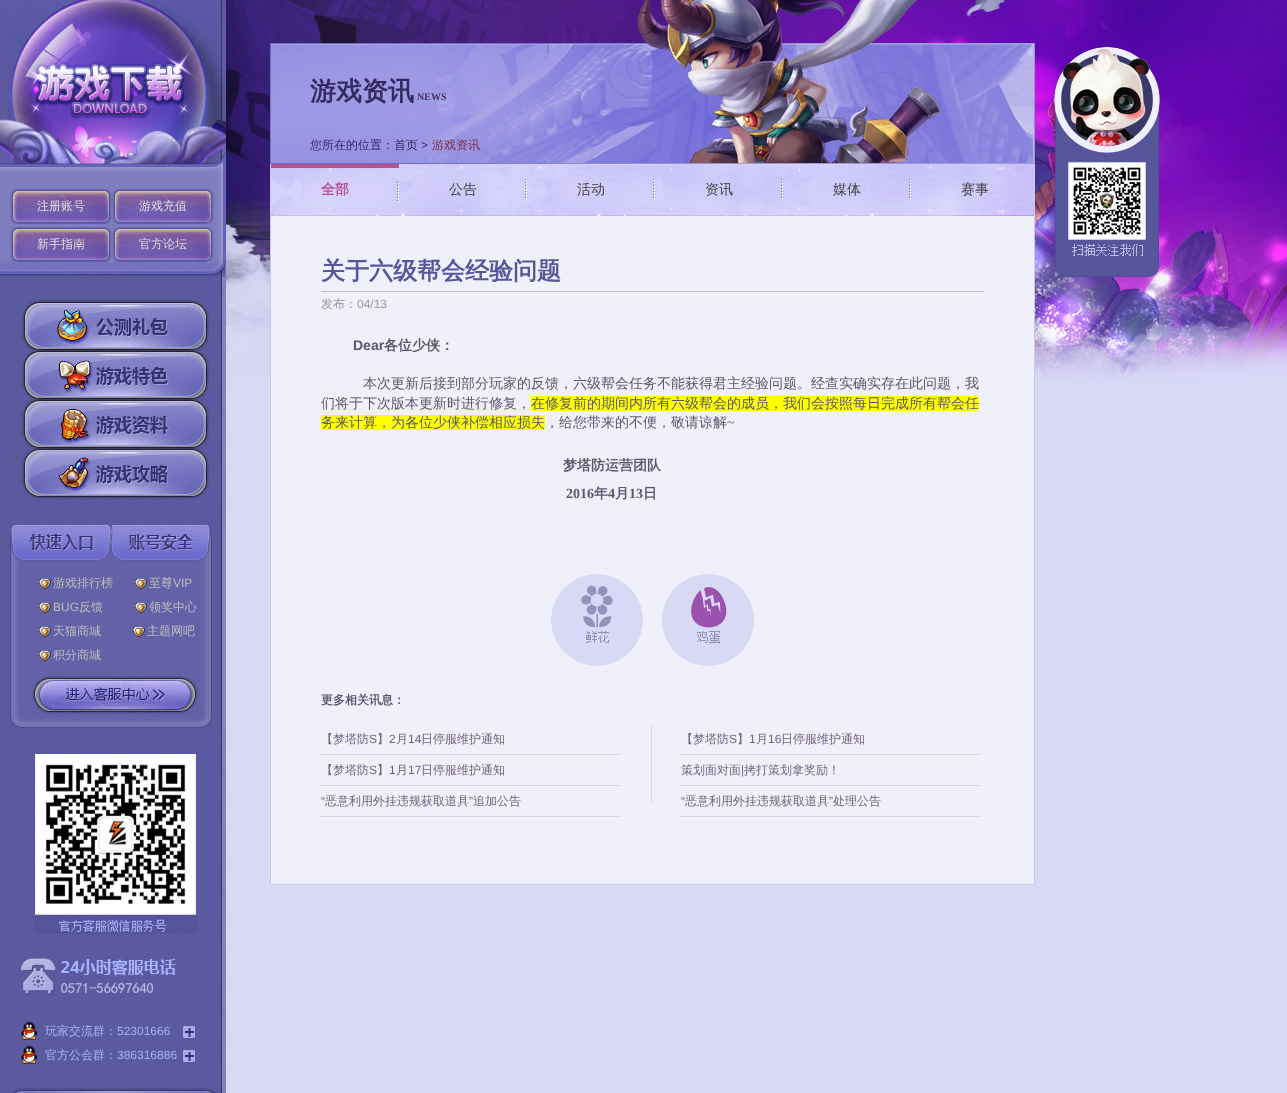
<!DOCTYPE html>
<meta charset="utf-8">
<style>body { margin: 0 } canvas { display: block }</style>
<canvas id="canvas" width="1287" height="1093"></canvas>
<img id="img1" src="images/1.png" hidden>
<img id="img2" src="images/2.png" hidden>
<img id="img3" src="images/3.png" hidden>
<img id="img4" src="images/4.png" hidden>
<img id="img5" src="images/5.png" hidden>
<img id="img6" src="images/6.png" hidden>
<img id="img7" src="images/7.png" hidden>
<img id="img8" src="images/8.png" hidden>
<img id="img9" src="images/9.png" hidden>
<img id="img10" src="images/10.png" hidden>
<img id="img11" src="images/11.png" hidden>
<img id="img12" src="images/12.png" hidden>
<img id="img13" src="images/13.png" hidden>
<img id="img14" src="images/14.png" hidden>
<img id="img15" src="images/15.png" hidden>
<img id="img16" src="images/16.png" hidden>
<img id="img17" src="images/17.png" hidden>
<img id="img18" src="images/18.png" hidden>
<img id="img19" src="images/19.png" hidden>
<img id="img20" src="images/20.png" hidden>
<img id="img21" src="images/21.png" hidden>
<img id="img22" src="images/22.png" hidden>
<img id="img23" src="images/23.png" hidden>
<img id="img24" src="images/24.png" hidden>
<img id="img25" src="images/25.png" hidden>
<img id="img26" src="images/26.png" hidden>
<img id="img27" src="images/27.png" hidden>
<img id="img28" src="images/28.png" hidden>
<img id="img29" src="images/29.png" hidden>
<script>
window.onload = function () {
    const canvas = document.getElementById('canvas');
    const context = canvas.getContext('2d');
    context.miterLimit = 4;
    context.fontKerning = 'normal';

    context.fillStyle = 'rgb(217, 217, 245)';
    context.fillRect(0, 0, 1287, 1093);
    context.drawImage(document.getElementById('img1'), 226, 0, 1061, 392);
    context.drawImage(document.getElementById('img2'), 226, 224, 1061, 199);
    context.drawImage(document.getElementById('img3'), 0, 277, 226, 816);
    context.drawImage(document.getElementById('img4'), 0, 0, 226, 277);
    context.drawImage(document.getElementById('img5'), 10, 189, 102, 35);
    context.drawImage(document.getElementById('img5'), 112, 189, 102, 35);
    context.drawImage(document.getElementById('img5'), 10, 227, 102, 35);
    context.drawImage(document.getElementById('img5'), 112, 227, 102, 35);
    context.drawImage(document.getElementById('img6'), 21, 299, 188, 50);
    context.drawImage(document.getElementById('img7'), 21, 349, 188, 50);
    context.drawImage(document.getElementById('img8'), 21, 399, 188, 50);
    context.drawImage(document.getElementById('img9'), 21, 449, 188, 50);
    context.drawImage(document.getElementById('img10'), 10, 524, 216, 205);
    context.drawImage(document.getElementById('img11'), 11, 524, 100, 37);
    context.drawImage(document.getElementById('img12'), 111, 524, 100, 37);
    context.drawImage(document.getElementById('img13'), 39, 579, 12, 10);
    context.drawImage(document.getElementById('img13'), 135, 579, 12, 10);
    context.drawImage(document.getElementById('img13'), 39, 603, 12, 10);
    context.drawImage(document.getElementById('img13'), 135, 603, 12, 10);
    context.drawImage(document.getElementById('img13'), 39, 627, 12, 10);
    context.drawImage(document.getElementById('img13'), 133, 627, 12, 10);
    context.drawImage(document.getElementById('img13'), 39, 651, 12, 10);
    context.drawImage(document.getElementById('img14'), 30, 676, 170, 38);
    context.drawImage(document.getElementById('img15'), 35, 754, 162, 180);
    context.drawImage(document.getElementById('img16'), 15, 954, 170, 45);
    context.drawImage(document.getElementById('img17'), 21, 1022, 16, 18);
    context.drawImage(document.getElementById('img18'), 183, 1026, 12, 12);
    context.drawImage(document.getElementById('img17'), 21, 1046, 16, 18);
    context.drawImage(document.getElementById('img18'), 183, 1050, 12, 12);
    context.drawImage(document.getElementById('img19'), 10, 1087, 208, 6);
    context.drawImage(document.getElementById('img20'), 270, 0, 765, 164);
    context.fillStyle = 'rgb(240, 240, 250)';
    context.fillRect(271, 216, 763, 668);
    context.fillStyle = 'rgb(199, 199, 239)';
    context.fillRect(1034, 164, 1, 721);
    context.fillRect(270, 884, 765, 1);
    context.fillRect(270, 164, 1, 721);
    context.drawImage(document.getElementById('img21'), 271, 164, 763, 52);
    context.drawImage(document.getElementById('img22'), 397, 182, 2, 20);
    context.fillStyle = 'rgb(179, 82, 148)';
    context.fillRect(271, 164, 128, 4);
    context.drawImage(document.getElementById('img23'), 525, 179, 2, 20);
    context.drawImage(document.getElementById('img24'), 653, 179, 2, 20);
    context.drawImage(document.getElementById('img25'), 781, 179, 2, 20);
    context.drawImage(document.getElementById('img26'), 909, 179, 2, 20);
    context.fillStyle = 'rgb(190, 185, 218)';
    context.fillRect(321, 291, 663, 1);
    context.fillStyle = 'rgb(255, 255, 0)';
    context.fillRect(531, 396, 448, 15);
    context.fillRect(321, 415, 224, 15);
    context.drawImage(document.getElementById('img27'), 551, 574, 92, 92);
    context.drawImage(document.getElementById('img28'), 662, 574, 92, 92);
    context.beginPath();
    context.moveTo(651.5, 724);
    context.lineTo(651.5, 804);
    context.strokeStyle = 'rgb(192, 192, 200)';
    context.setLineDash([1, 1]);
    context.stroke();
    context.beginPath();
    context.moveTo(321, 754.5);
    context.lineTo(621, 754.5);
    context.stroke();
    context.beginPath();
    context.moveTo(681, 754.5);
    context.lineTo(981, 754.5);
    context.stroke();
    context.beginPath();
    context.moveTo(321, 785.5);
    context.lineTo(621, 785.5);
    context.stroke();
    context.beginPath();
    context.moveTo(681, 785.5);
    context.lineTo(981, 785.5);
    context.stroke();
    context.beginPath();
    context.moveTo(321, 816.5);
    context.lineTo(621, 816.5);
    context.stroke();
    context.beginPath();
    context.moveTo(681, 816.5);
    context.lineTo(981, 816.5);
    context.stroke();
    context.drawImage(document.getElementById('img29'), 1054, 47, 106, 230);
    context.font = '500 12px WenQuanYi Zen Hei';
    context.fillStyle = 'rgb(222, 222, 222)';
    context.fillText('注册账号', 37, 210);
    context.fillText('游戏充值', 139, 210);
    context.fillText('新手指南', 37, 248);
    context.fillText('官方论坛', 139, 248);
    context.fillStyle = 'rgb(189, 189, 189)';
    context.fillText('游戏排行榜', 53, 587);
    context.fillText('至尊', 149, 587);
    context.font = '12px Liberation Sans';
    context.fillText('VIP', 173, 587);
    context.fillText('BUG', 53, 611);
    context.font = '500 12px WenQuanYi Zen Hei';
    context.fillText('反馈', 79, 611);
    context.fillText('领奖中心', 149, 611);
    context.fillText('天猫商城', 53, 635);
    context.fillText('主题网吧', 147, 635);
    context.fillText('积分商城', 53, 659);
    context.fillStyle = 'rgb(165, 178, 249)';
    context.fillText('玩家交流群：', 45, 1035);
    context.font = '12px Liberation Sans';
    context.fillText('52301666', 117, 1035);
    context.font = '500 12px WenQuanYi Zen Hei';
    context.fillText('官方公会群：', 45, 1059);
    context.font = '12px Liberation Sans';
    context.fillText('386316886', 117, 1059);
    context.font = 'bold 26px WenQuanYi Zen Hei';
    context.fillStyle = 'rgb(53, 41, 98)';
    context.fillText('游戏资讯', 310, 100);
    context.font = 'bold 10px Liberation Serif';
    context.fillStyle = 'rgb(67, 47, 101)';
    context.fillText('NEWS', 417, 100);
    context.font = '500 12px WenQuanYi Zen Hei';
    context.fillStyle = 'rgb(53, 41, 98)';
    context.fillText('您所在的位置：首页', 310, 149);
    context.font = '12px Liberation Sans';
    context.fillText('>', 421, 149);
    context.font = '500 12px WenQuanYi Zen Hei';
    context.fillStyle = 'rgb(131, 48, 66)';
    context.fillText('游戏资讯', 432, 149);
    context.font = 'bold 14px WenQuanYi Zen Hei';
    context.fillStyle = 'rgb(179, 82, 148)';
    context.fillText('全部', 321, 194);
    context.font = '500 14px WenQuanYi Zen Hei';
    context.fillStyle = 'rgb(66, 66, 66)';
    context.fillText('公告', 449, 194);
    context.fillText('活动', 577, 194);
    context.fillText('资讯', 705, 194);
    context.fillText('媒体', 833, 194);
    context.fillText('赛事', 961, 194);
    context.font = 'bold 24px WenQuanYi Zen Hei';
    context.fillStyle = 'rgb(86, 86, 155)';
    context.fillText('关于六级帮会经验问题', 321, 279);
    context.font = '500 12px WenQuanYi Zen Hei';
    context.fillStyle = 'rgb(153, 153, 153)';
    context.fillText('发布：', 321, 308);
    context.font = '12px Liberation Sans';
    context.fillText('04/13', 357, 308);
    context.font = 'bold 14px Liberation Sans';
    context.fillStyle = 'rgb(90, 87, 108)';
    context.fillText('Dear', 353, 350);
    context.font = 'bold 14px WenQuanYi Zen Hei';
    context.fillText('各位少侠：', 384, 350);
    context.font = '500 14px WenQuanYi Zen Hei';
    context.fillText('本次更新后接到部分玩家的反馈，六级帮会任务不能获得君主经验问题。经查实确实存在此问题，我', 363, 388);
    context.fillText('们将于下次版本更新时进行修复，', 321, 408);
    context.fillText('在修复前的期间内所有六级帮会的成员，我们会按照每日完成所有帮会任', 531, 408);
    context.fillText('务来计算，为各位少侠补偿相应损失，给您带来的不便，敬请谅解', 321, 427);
    context.font = '14px Liberation Serif';
    context.fillText('~', 727, 427);
    context.font = 'bold 14px WenQuanYi Zen Hei';
    context.fillText('梦塔防运营团队', 563, 470);
    context.font = 'bold 14px Liberation Serif';
    context.fillText('2016', 566, 498);
    context.font = 'bold 14px WenQuanYi Zen Hei';
    context.fillText('年', 594, 498);
    context.font = 'bold 14px Liberation Serif';
    context.fillText('4', 608, 498);
    context.font = 'bold 14px WenQuanYi Zen Hei';
    context.fillText('月', 615, 498);
    context.font = 'bold 14px Liberation Serif';
    context.fillText('13', 629, 498);
    context.font = 'bold 14px WenQuanYi Zen Hei';
    context.fillText('日', 643, 498);
    context.font = 'bold 12px WenQuanYi Zen Hei';
    context.fillText('更多相关讯息：', 321, 704);
    context.font = '500 12px WenQuanYi Zen Hei';
    context.fillStyle = 'rgb(114, 99, 125)';
    context.fillText('【梦塔防', 321, 743);
    context.font = '12px Liberation Sans';
    context.fillText('S', 369, 743);
    context.font = '500 12px WenQuanYi Zen Hei';
    context.fillText('】', 377, 743);
    context.font = '12px Liberation Sans';
    context.fillText('2', 389, 743);
    context.font = '500 12px WenQuanYi Zen Hei';
    context.fillText('月', 396, 743);
    context.font = '12px Liberation Sans';
    context.fillText('14', 408, 743);
    context.font = '500 12px WenQuanYi Zen Hei';
    context.fillText('日停服维护通知', 421, 743);
    context.fillText('【梦塔防', 681, 743);
    context.font = '12px Liberation Sans';
    context.fillText('S', 729, 743);
    context.font = '500 12px WenQuanYi Zen Hei';
    context.fillText('】', 737, 743);
    context.font = '12px Liberation Sans';
    context.fillText('1', 749, 743);
    context.font = '500 12px WenQuanYi Zen Hei';
    context.fillText('月', 756, 743);
    context.font = '12px Liberation Sans';
    context.fillText('16', 768, 743);
    context.font = '500 12px WenQuanYi Zen Hei';
    context.fillText('日停服维护通知', 781, 743);
    context.fillText('【梦塔防', 321, 774);
    context.font = '12px Liberation Sans';
    context.fillText('S', 369, 774);
    context.font = '500 12px WenQuanYi Zen Hei';
    context.fillText('】', 377, 774);
    context.font = '12px Liberation Sans';
    context.fillText('1', 389, 774);
    context.font = '500 12px WenQuanYi Zen Hei';
    context.fillText('月', 396, 774);
    context.font = '12px Liberation Sans';
    context.fillText('17', 408, 774);
    context.font = '500 12px WenQuanYi Zen Hei';
    context.fillText('日停服维护通知', 421, 774);
    context.fillText('策划面对面', 681, 774);
    context.font = '12px Liberation Sans';
    context.fillText('|', 741, 774);
    context.font = '500 12px WenQuanYi Zen Hei';
    context.fillText('拷打策划拿奖励！', 744, 774);
    context.font = '12px Liberation Sans';
    context.fillText('“', 321, 805);
    context.font = '500 12px WenQuanYi Zen Hei';
    context.fillText('恶意利用外挂违规获取道具', 325, 805);
    context.font = '12px Liberation Sans';
    context.fillText('”', 469, 805);
    context.font = '500 12px WenQuanYi Zen Hei';
    context.fillText('追加公告', 473, 805);
    context.font = '12px Liberation Sans';
    context.fillText('“', 681, 805);
    context.font = '500 12px WenQuanYi Zen Hei';
    context.fillText('恶意利用外挂违规获取道具', 685, 805);
    context.font = '12px Liberation Sans';
    context.fillText('”', 829, 805);
    context.font = '500 12px WenQuanYi Zen Hei';
    context.fillText('处理公告', 833, 805);
};
</script>
